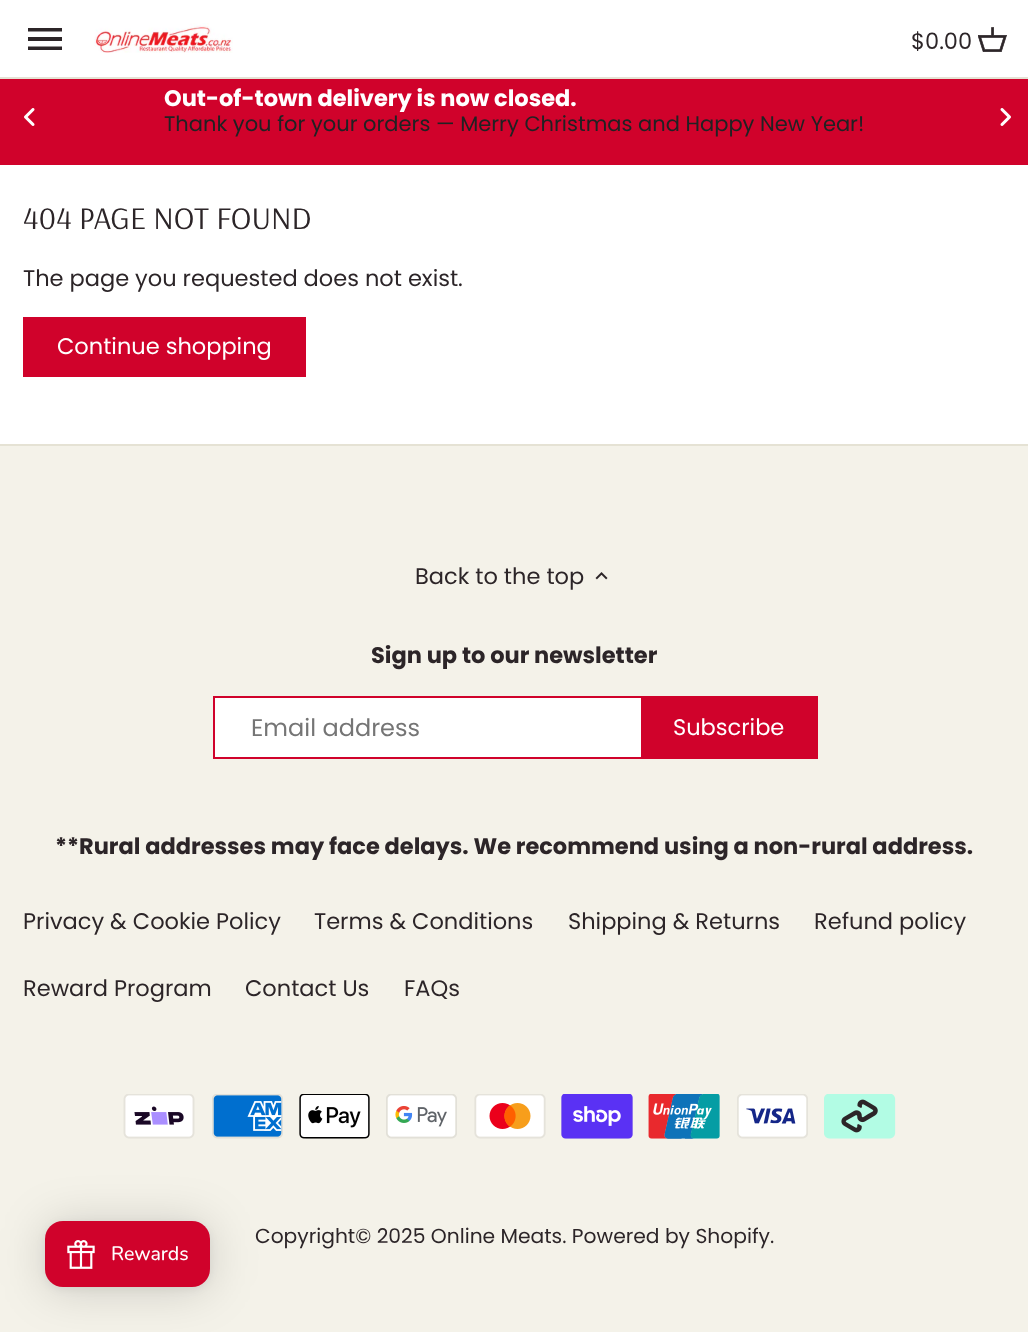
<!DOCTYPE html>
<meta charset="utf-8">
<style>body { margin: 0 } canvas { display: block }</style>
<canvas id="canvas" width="1028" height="1332"></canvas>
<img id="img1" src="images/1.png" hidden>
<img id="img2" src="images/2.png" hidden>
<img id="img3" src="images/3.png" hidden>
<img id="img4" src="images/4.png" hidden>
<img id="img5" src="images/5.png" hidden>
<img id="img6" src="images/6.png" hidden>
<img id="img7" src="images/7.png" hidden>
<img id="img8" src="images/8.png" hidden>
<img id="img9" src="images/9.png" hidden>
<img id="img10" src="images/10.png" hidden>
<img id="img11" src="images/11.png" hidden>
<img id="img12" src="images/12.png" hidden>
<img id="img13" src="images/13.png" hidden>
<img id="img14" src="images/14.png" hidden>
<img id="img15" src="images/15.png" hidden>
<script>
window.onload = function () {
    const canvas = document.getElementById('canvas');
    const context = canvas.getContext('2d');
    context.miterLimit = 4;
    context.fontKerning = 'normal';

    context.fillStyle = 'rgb(244, 242, 233)';
    context.fillRect(0, 0, 1028, 1332);
    context.fillStyle = 'rgb(255, 255, 255)';
    context.fillRect(0, 165, 1028, 279);
    context.fillRect(0, 0, 1028, 77);
    context.fillStyle = 'rgb(229, 226, 212)';
    context.fillRect(0, 77, 1028, 2);
    context.fillStyle = 'rgb(44, 37, 40)';
    context.beginPath();
    context.moveTo(28, 50);
    context.lineTo(62, 50);
    context.lineTo(62, 46.5);
    context.lineTo(28, 46.5);
    context.closePath();
    context.moveTo(28, 41);
    context.lineTo(62, 41);
    context.lineTo(62, 37);
    context.lineTo(28, 37);
    context.closePath();
    context.moveTo(28, 28);
    context.lineTo(28, 31.5);
    context.lineTo(62, 31.5);
    context.lineTo(62, 28);
    context.closePath();
    context.fill();
    context.drawImage(document.getElementById('img1'), 94, 23, 139, 30);
    context.drawImage(document.getElementById('img2'), 978, 27, 29, 25);
    context.fillStyle = 'rgb(208, 2, 43)';
    context.fillRect(0, 79, 1028, 86);
    context.drawImage(document.getElementById('img3'), 24, 108, 11, 18);
    context.drawImage(document.getElementById('img4'), 1000, 108, 11, 18);
    context.fillRect(23, 317, 283, 60);
    context.fillStyle = 'rgb(229, 226, 212)';
    context.fillRect(0, 444, 1028, 2);
    context.drawImage(document.getElementById('img5'), 595, 572, 13, 8);
    context.fillStyle = 'rgb(255, 255, 255)';
    context.fillRect(215, 698, 426, 59);
    context.strokeStyle = 'rgb(208, 2, 43)';
    context.lineWidth = 2;
    context.strokeRect(214, 697, 601, 61);
    context.fillStyle = 'rgb(208, 2, 43)';
    context.fillRect(641, 696, 177, 63);
    context.drawImage(document.getElementById('img6'), 123, 1094, 72, 45);
    context.drawImage(document.getElementById('img7'), 212, 1094, 71, 45);
    context.drawImage(document.getElementById('img8'), 299, 1094, 71, 45);
    context.drawImage(document.getElementById('img9'), 386, 1094, 71, 45);
    context.drawImage(document.getElementById('img10'), 474, 1094, 72, 45);
    context.drawImage(document.getElementById('img11'), 561, 1094, 72, 45);
    context.drawImage(document.getElementById('img12'), 648, 1094, 72, 45);
    context.drawImage(document.getElementById('img13'), 737, 1094, 71, 45);
    context.drawImage(document.getElementById('img14'), 824, 1094, 72, 45);
    context.fillStyle = 'rgba(0, 0, 0, 0.16)';
    context.filter = 'blur(24px)';
    context.beginPath();
    context.roundRect(45, 1224, 165, 66, 18);
    context.fill();
    context.filter = 'none';
    context.fillStyle = 'rgba(0, 0, 0, 0.06)';
    context.filter = 'blur(4.5px)';
    context.beginPath();
    context.roundRect(45, 1223, 165, 66, 18);
    context.fill();
    context.filter = 'none';
    context.fillStyle = 'rgb(208, 2, 43)';
    context.beginPath();
    context.roundRect(45, 1221, 165, 66, 18);
    context.fill();
    context.drawImage(document.getElementById('img15'), 67, 1240, 28, 29);
    context.font = '22.5px Poppins';
    context.fillStyle = 'rgb(44, 37, 40)';
    context.fillText('$0.00', 911, 49);
    context.font = 'bold 22.5px Poppins';
    context.fillStyle = 'rgb(255, 255, 255)';
    context.fillText('Out-of-town delivery is now closed.', 164, 106);
    context.font = '21px Poppins';
    context.fillStyle = 'rgb(32, 34, 35)';
    context.fillText('Thank you for your orders — Merry Christmas and Happy New Year!', 164, 131);
    context.font = '31.5px Arsenal';
    context.fillStyle = 'rgb(44, 37, 40)';
    context.fillText('404 PAGE NOT FOUND', 23, 229);
    context.font = '22.5px Poppins';
    context.fillText('The page you requested does not exist.', 23, 286);
    context.fillStyle = 'rgb(255, 255, 255)';
    context.fillText('Continue shopping', 57, 354);
    context.fillStyle = 'rgb(44, 37, 40)';
    context.fillText('Back to the top', 415, 584);
    context.font = 'bold 22.5px Poppins';
    context.fillText('Sign up to our newsletter', 371, 663);
    context.font = '24px Poppins';
    context.fillStyle = 'rgb(117, 117, 117)';
    context.fillText('Email address', 251, 736);
    context.font = '22.5px Poppins';
    context.fillStyle = 'rgb(255, 255, 255)';
    context.fillText('Subscribe', 673, 735);
    context.font = 'bold 22.5px Poppins';
    context.fillStyle = 'rgb(44, 37, 40)';
    context.fillText('**Rural addresses may face delays. We recommend using a non-rural address.', 55, 854);
    context.font = '22.5px Poppins';
    context.fillText('Privacy & Cookie Policy', 23, 929);
    context.fillText('Terms & Conditions', 314, 929);
    context.fillText('Shipping & Returns', 568, 929);
    context.fillText('Refund policy', 814, 929);
    context.fillText('Reward Program', 23, 996);
    context.fillText('Contact Us', 245, 996);
    context.fillText('FAQs', 404, 996);
    context.font = '20.25px Poppins';
    context.fillText('Copyright© 2025 Online Meats. Powered by Shopify.', 255, 1243);
    context.font = '500 19.5px Nunito';
    context.fillStyle = 'rgb(255, 255, 255)';
    context.fillText('Rewards', 111, 1260);
};
</script>
